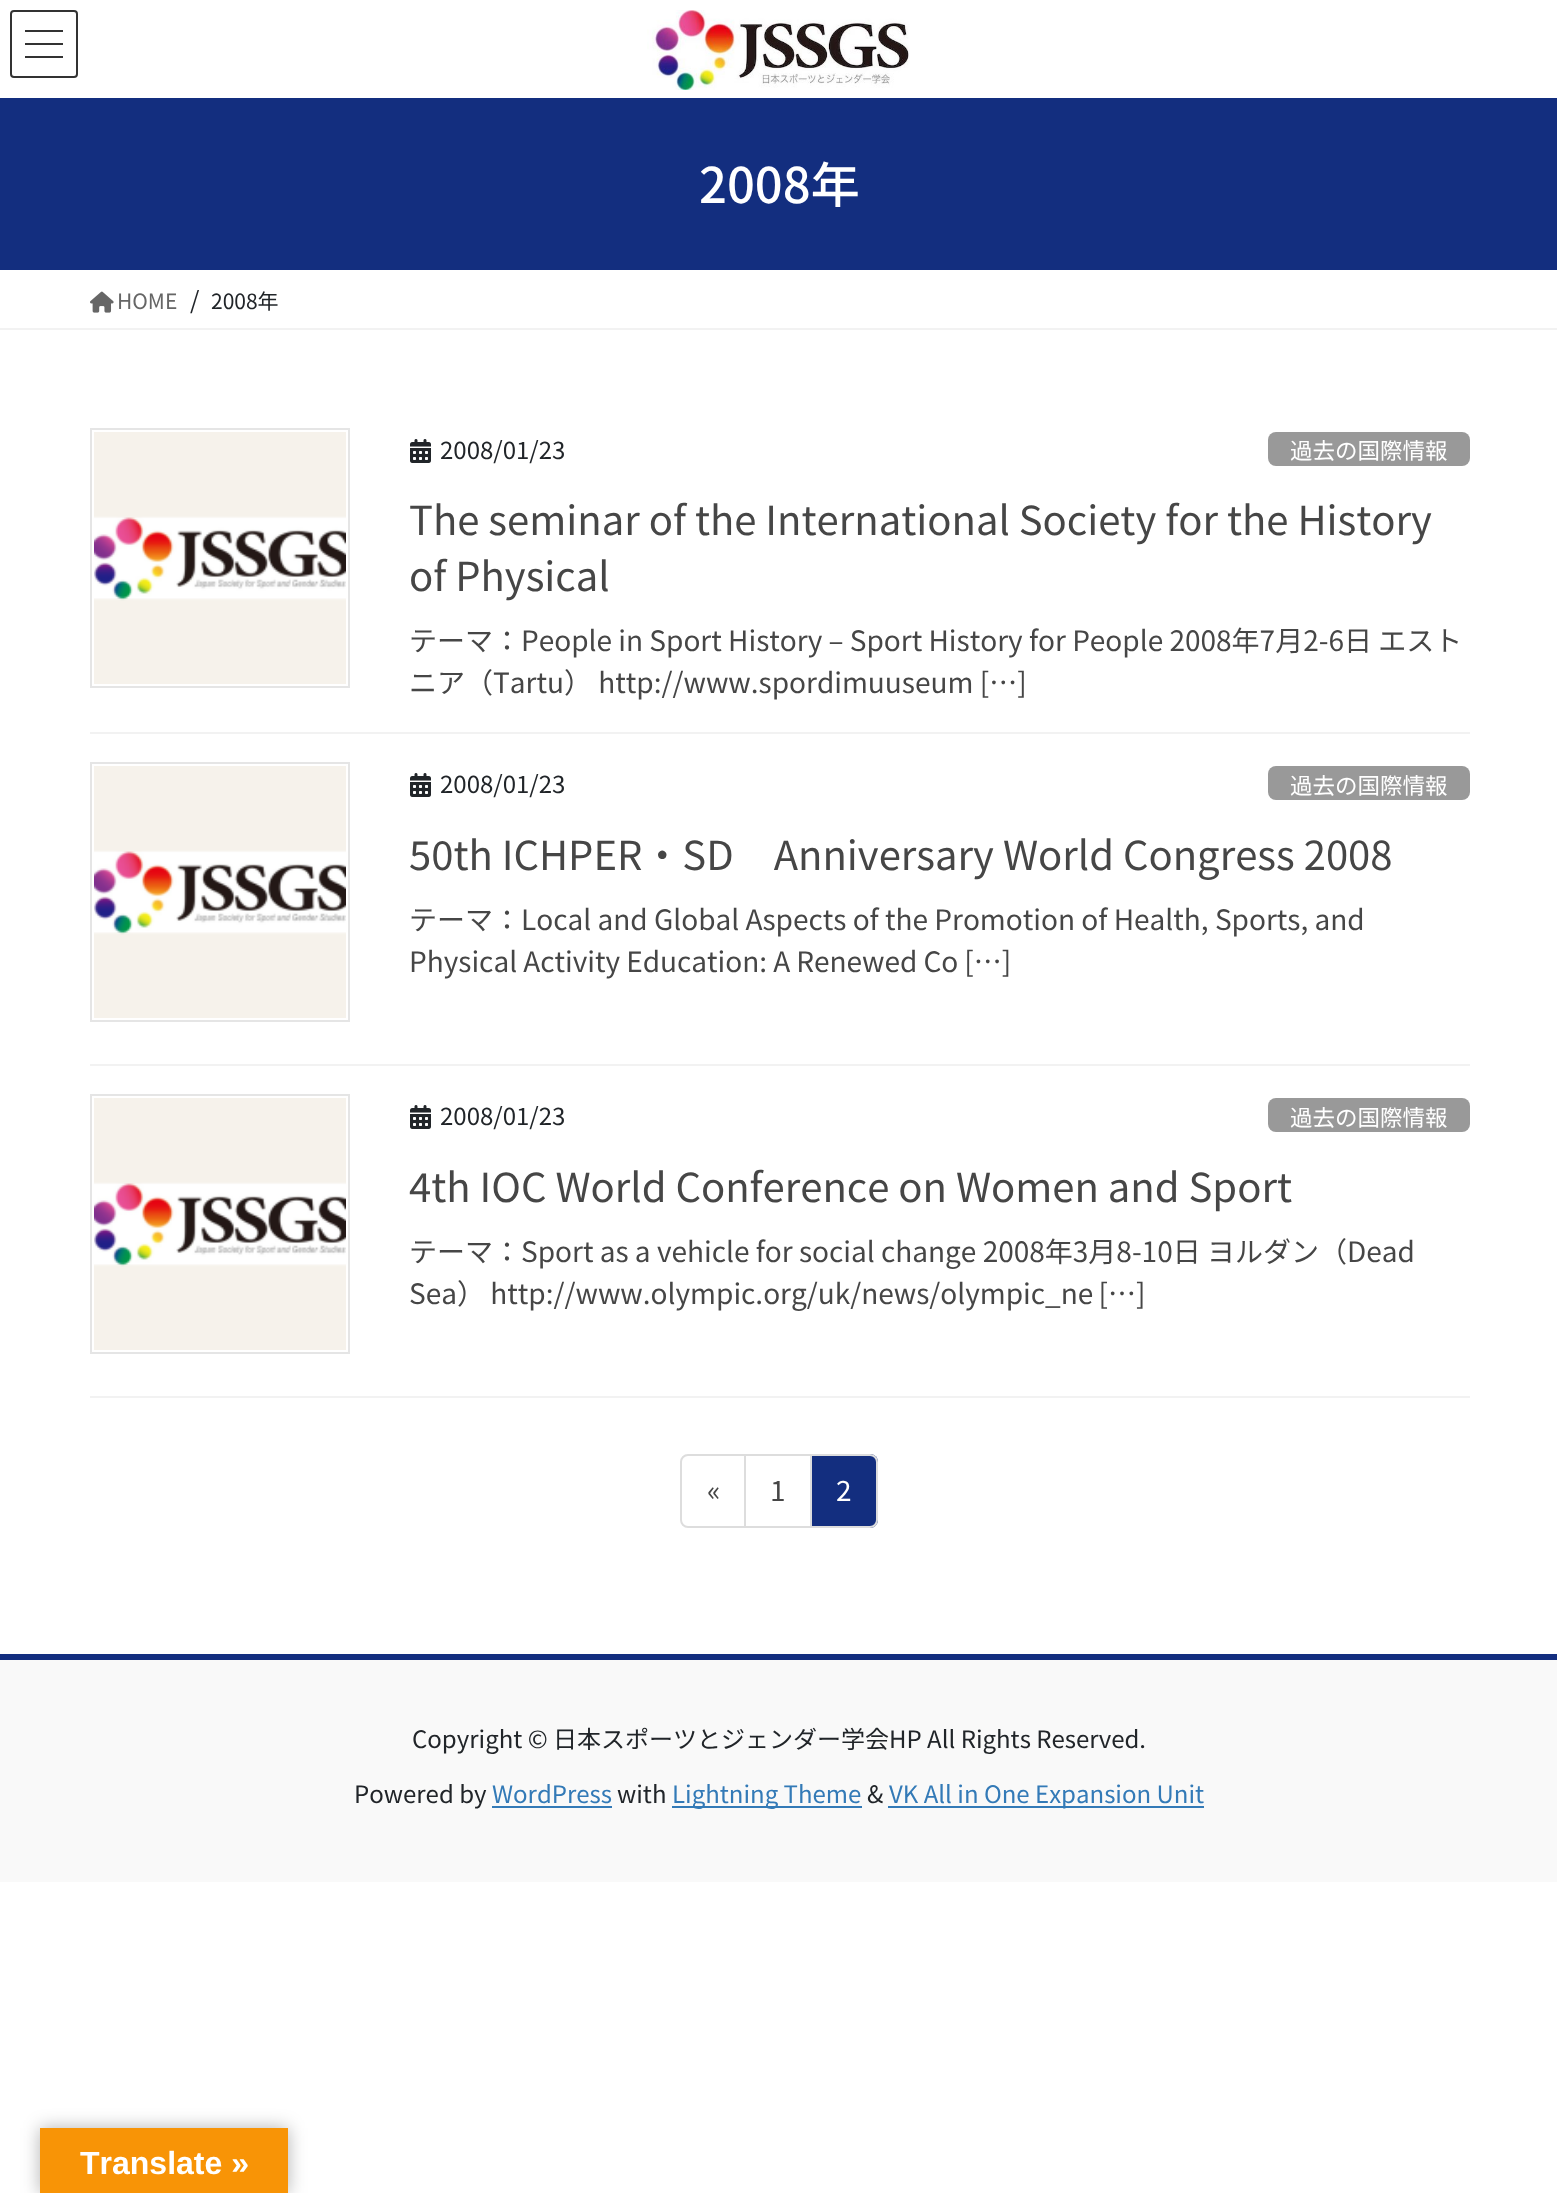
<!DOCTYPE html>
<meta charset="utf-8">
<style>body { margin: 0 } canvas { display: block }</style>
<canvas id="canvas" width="1557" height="2193"></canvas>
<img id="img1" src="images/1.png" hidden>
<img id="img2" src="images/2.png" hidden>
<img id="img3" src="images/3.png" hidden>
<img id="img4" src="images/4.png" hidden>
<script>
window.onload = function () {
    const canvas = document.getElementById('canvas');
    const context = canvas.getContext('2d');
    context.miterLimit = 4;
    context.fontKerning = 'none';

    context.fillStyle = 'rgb(255, 255, 255)';
    context.fillRect(0, 0, 1557, 2193);
    context.fillStyle = 'rgb(51, 51, 51)';
    context.fillRect(25, 30, 38, 2);
    context.fillRect(25, 43, 38, 2);
    context.fillRect(25, 56, 38, 2);
    context.beginPath();
    context.roundRect(11, 11, 66, 66, 3);
    context.strokeStyle = 'rgb(51, 51, 51)';
    context.lineWidth = 2;
    context.stroke();
    context.drawImage(document.getElementById('img1'), 647, 10, 263, 80);
    context.fillStyle = 'rgb(19, 46, 127)';
    context.fillRect(0, 98, 1557, 172);
    context.fillStyle = 'rgb(242, 242, 242)';
    context.fillRect(0, 328, 1557, 2);
    context.drawImage(document.getElementById('img2'), 90, 291, 24, 22);
    context.fillRect(90, 732, 1380, 2);
    context.strokeStyle = 'rgb(229, 229, 229)';
    context.strokeRect(91, 429, 258, 258);
    context.drawImage(document.getElementById('img3'), 94, 432, 252, 252);
    context.drawImage(document.getElementById('img4'), 410, 439, 21, 24);
    context.fillStyle = 'rgb(153, 153, 153)';
    context.beginPath();
    context.roundRect(1268, 432, 202, 34, 8);
    context.fill();
    context.fillStyle = 'rgb(242, 242, 242)';
    context.fillRect(90, 1064, 1380, 2);
    context.strokeRect(91, 763, 258, 258);
    context.drawImage(document.getElementById('img3'), 94, 766, 252, 252);
    context.drawImage(document.getElementById('img4'), 410, 773, 21, 24);
    context.fillStyle = 'rgb(153, 153, 153)';
    context.beginPath();
    context.roundRect(1268, 766, 202, 34, 8);
    context.fill();
    context.fillStyle = 'rgb(242, 242, 242)';
    context.fillRect(90, 1396, 1380, 2);
    context.strokeRect(91, 1095, 258, 258);
    context.drawImage(document.getElementById('img3'), 94, 1098, 252, 252);
    context.drawImage(document.getElementById('img4'), 410, 1105, 21, 24);
    context.fillStyle = 'rgb(153, 153, 153)';
    context.beginPath();
    context.roundRect(1268, 1098, 202, 34, 8);
    context.fill();
    context.beginPath();
    context.roundRect(681, 1455, 64, 72, [7, 0, 0, 7]);
    context.strokeStyle = 'rgb(221, 221, 221)';
    context.stroke();
    context.save();
    context.beginPath();
    context.rect(746, 1454, 66, 74);
    context.clip();
    context.strokeRect(745, 1455, 66, 72);
    context.restore();
    context.fillStyle = 'rgb(19, 46, 127)';
    context.beginPath();
    context.roundRect(812, 1454, 66, 74, [0, 8, 8, 0]);
    context.fill();
    context.save();
    context.beginPath();
    context.rect(812, 1454, 66, 74);
    context.clip();
    context.beginPath();
    context.roundRect(811, 1455, 66, 72, [0, 7, 7, 0]);
    context.stroke();
    context.restore();
    context.fillStyle = 'rgb(249, 249, 249)';
    context.fillRect(0, 1660, 1557, 222);
    context.fillStyle = 'rgb(19, 46, 127)';
    context.fillRect(0, 1654, 1557, 6);
    context.fillStyle = 'rgb(51, 122, 183)';
    context.fillRect(492, 1806, 120, 2);
    context.fillRect(672, 1806, 190, 2);
    context.fillRect(888, 1806, 316, 2);
    context.fillStyle = 'rgba(0, 0, 0, 0.3)';
    context.filter = 'blur(9px)';
    context.beginPath();
    context.rect(40, 2128, 248, 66);
    context.fill();
    context.filter = 'none';
    context.fillStyle = 'rgb(248, 148, 6)';
    context.fillRect(40, 2128, 248, 65);
    context.font = '500 49px Noto Sans JP';
    context.fillStyle = 'rgb(255, 255, 255)';
    context.fillText('2008年', 699, 203);
    context.font = '21px Noto Sans JP';
    context.fillStyle = 'rgb(102, 102, 102)';
    context.fillText('HOME', 117, 309);
    context.font = '24px Noto Sans JP';
    context.fillStyle = 'rgb(33, 37, 41)';
    context.fillText('/', 190, 309);
    context.font = '21px Noto Sans JP';
    context.fillText('2008年', 211, 309);
    context.font = '24px Noto Sans JP';
    context.fillText('2008/01/23', 440, 459);
    context.font = '22.5px Noto Sans JP';
    context.fillStyle = 'rgb(255, 255, 255)';
    context.fillText('過去の国際情報', 1290, 459);
    context.font = '40px Noto Sans JP';
    context.fillStyle = 'rgb(70, 70, 70)';
    context.fillText('The seminar of the International Society for the History', 409, 535);
    context.fillText('of Physical', 409, 591);
    context.font = '28px Noto Sans JP';
    context.fillText('テーマ：People in Sport History – Sport History for People 2008年7月2-6日 エスト', 409, 651);
    context.fillText('ニア（Tartu） http://www.spordimuuseum […]', 409, 693);
    context.font = '24px Noto Sans JP';
    context.fillStyle = 'rgb(33, 37, 41)';
    context.fillText('2008/01/23', 440, 793);
    context.font = '22.5px Noto Sans JP';
    context.fillStyle = 'rgb(255, 255, 255)';
    context.fillText('過去の国際情報', 1290, 794);
    context.font = '40px Noto Sans JP';
    context.fillStyle = 'rgb(70, 70, 70)';
    context.fillText('50th ICHPER・SD　Anniversary World Congress 2008', 409, 870);
    context.font = '28px Noto Sans JP';
    context.fillText('テーマ：Local and Global Aspects of the Promotion of Health, Sports, and', 409, 930);
    context.wordSpacing = '-0.25px';
    context.fillText('Physical Activity Education: A Renewed Co […]', 409, 972);
    context.wordSpacing = '0px';
    context.font = '24px Noto Sans JP';
    context.fillStyle = 'rgb(33, 37, 41)';
    context.fillText('2008/01/23', 440, 1125);
    context.font = '22.5px Noto Sans JP';
    context.fillStyle = 'rgb(255, 255, 255)';
    context.fillText('過去の国際情報', 1290, 1126);
    context.font = '40px Noto Sans JP';
    context.fillStyle = 'rgb(70, 70, 70)';
    context.fillText('4th IOC World Conference on Women and Sport', 409, 1202);
    context.font = '28px Noto Sans JP';
    context.fillText('テーマ：Sport as a vehicle for social change 2008年3月8-10日 ヨルダン（Dead', 409, 1262);
    context.wordSpacing = '-1px';
    context.fillText('Sea） http://www.olympic.org/uk/news/olympic_ne […]', 409, 1304);
    context.wordSpacing = '0px';
    context.fillText('«', 707, 1501);
    context.fillText('1', 770, 1501);
    context.fillStyle = 'rgb(255, 255, 255)';
    context.fillText('2', 836, 1501);
    context.font = '24px Noto Sans JP';
    context.fillStyle = 'rgb(33, 37, 41)';
    context.fillText('Copyright © 日本スポーツとジェンダー学会HP All Rights Reserved.', 412, 1748);
    context.fillText('Powered by', 354, 1803);
    context.fillStyle = 'rgb(51, 122, 183)';
    context.fillText('WordPress', 492, 1803);
    context.fillStyle = 'rgb(33, 37, 41)';
    context.fillText('with', 617, 1803);
    context.fillStyle = 'rgb(51, 122, 183)';
    context.fillText('Lightning Theme', 672, 1803);
    context.fillStyle = 'rgb(33, 37, 41)';
    context.fillText('&', 867, 1803);
    context.fillStyle = 'rgb(51, 122, 183)';
    context.fillText('VK All in One Expansion Unit', 889, 1803);
    context.font = 'bold 32px Liberation Sans';
    context.fillStyle = 'rgb(255, 255, 255)';
    context.fillText('Translate »', 80, 2174);
};
</script>
